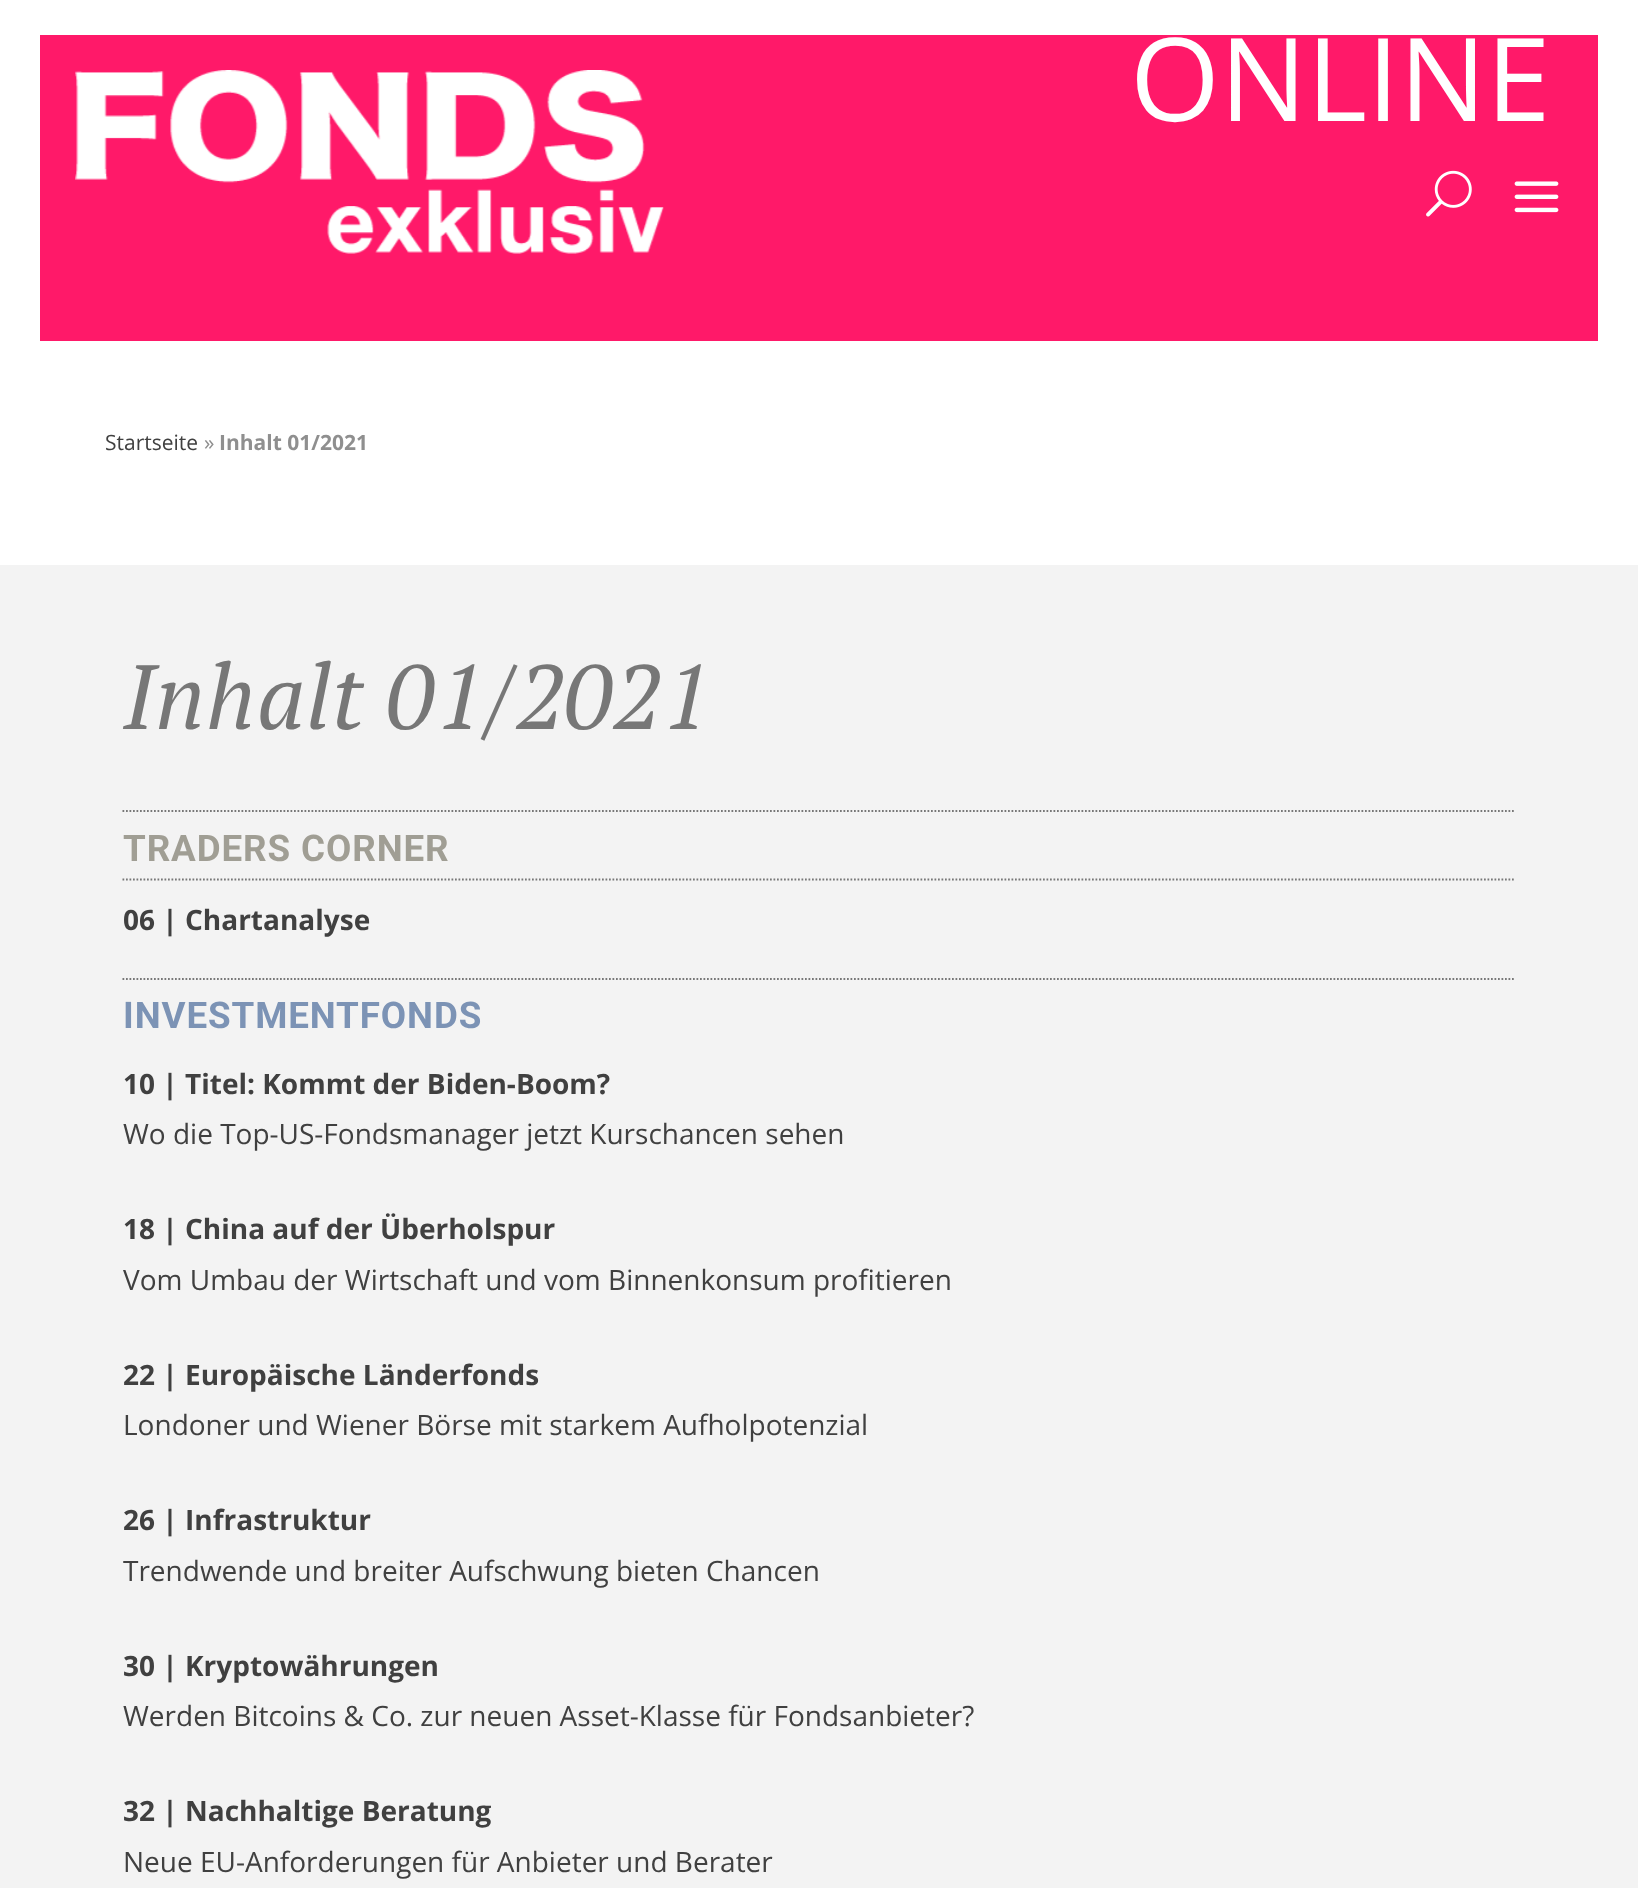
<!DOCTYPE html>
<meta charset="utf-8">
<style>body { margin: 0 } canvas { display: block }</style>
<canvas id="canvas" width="1638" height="1888"></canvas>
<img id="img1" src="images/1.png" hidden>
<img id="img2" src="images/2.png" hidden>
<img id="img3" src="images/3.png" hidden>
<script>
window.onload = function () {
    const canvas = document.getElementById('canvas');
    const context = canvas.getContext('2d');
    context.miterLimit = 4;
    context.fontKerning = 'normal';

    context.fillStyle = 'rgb(255, 255, 255)';
    context.fillRect(0, 0, 1638, 1888);
    context.fillStyle = 'rgb(255, 25, 105)';
    context.fillRect(40, 35, 1558, 306);
    context.drawImage(document.getElementById('img1'), 75, 70, 589, 184);
    context.drawImage(document.getElementById('img2'), 1426, 170, 46, 47);
    context.drawImage(document.getElementById('img3'), 1514, 181, 45, 32);
    context.fillStyle = 'rgb(243, 243, 243)';
    context.fillRect(0, 565, 1638, 1323);
    context.beginPath();
    context.moveTo(122.5, 811);
    context.lineTo(1515.5, 811);
    context.strokeStyle = 'rgb(119, 119, 119)';
    context.lineWidth = 1.8;
    context.setLineDash([1.75, 1.75]);
    context.stroke();
    context.beginPath();
    context.moveTo(122.5, 879.5);
    context.lineTo(1515.5, 879.5);
    context.stroke();
    context.beginPath();
    context.moveTo(122.5, 979);
    context.lineTo(1515.5, 979);
    context.stroke();
    context.font = '115.5px Open Sans';
    context.fillStyle = 'rgb(255, 255, 255)';
    context.fillText('ONLINE', 1130, 121);
    context.font = '21px Open Sans';
    context.fillStyle = 'rgb(64, 64, 64)';
    context.fillText('Startseite', 105, 450);
    context.fillStyle = 'rgb(143, 143, 143)';
    context.fillText('»', 204, 450);
    context.font = 'bold 21px Open Sans';
    context.fillText('Inhalt 01/2021', 219, 450);
    context.letterSpacing = '0.9px';
    context.font = 'italic 91px PT Serif';
    context.fillStyle = 'rgb(119, 119, 119)';
    context.fillText('Inhalt 01/2021', 123, 729);
    context.font = 'bold 36.75px Roboto';
    context.fillStyle = 'rgb(160, 158, 148)';
    context.fillText('TRADERS CORNER', 123, 861);
    context.letterSpacing = '0px';
    context.font = 'bold 28px Open Sans';
    context.fillStyle = 'rgb(64, 64, 64)';
    context.fillText('06 | Chartanalyse', 123, 930);
    context.letterSpacing = '0.9px';
    context.font = 'bold 36.75px Roboto';
    context.fillStyle = 'rgb(124, 147, 181)';
    context.fillText('INVESTMENTFONDS', 123, 1028);
    context.letterSpacing = '0px';
    context.font = 'bold 28px Open Sans';
    context.fillStyle = 'rgb(64, 64, 64)';
    context.fillText('10 | Titel: Kommt der Biden-Boom?', 123, 1094);
    context.font = '28px Open Sans';
    context.fillText('Wo die Top-US-Fondsmanager jetzt Kurschancen sehen', 123, 1144);
    context.font = 'bold 28px Open Sans';
    context.fillText('18 | China auf der Überholspur', 123, 1239);
    context.font = '28px Open Sans';
    context.fillText('Vom Umbau der Wirtschaft und vom Binnenkonsum profitieren', 123, 1290);
    context.font = 'bold 28px Open Sans';
    context.fillText('22 | Europäische Länderfonds', 123, 1385);
    context.font = '28px Open Sans';
    context.fillText('Londoner und Wiener Börse mit starkem Aufholpotenzial', 123, 1435);
    context.font = 'bold 28px Open Sans';
    context.fillText('26 | Infrastruktur', 123, 1530);
    context.font = '28px Open Sans';
    context.fillText('Trendwende und breiter Aufschwung bieten Chancen', 123, 1581);
    context.font = 'bold 28px Open Sans';
    context.fillText('30 | Kryptowährungen', 123, 1676);
    context.font = '28px Open Sans';
    context.fillText('Werden Bitcoins & Co. zur neuen Asset-Klasse für Fondsanbieter?', 123, 1726);
    context.font = 'bold 28px Open Sans';
    context.fillText('32 | Nachhaltige Beratung', 123, 1821);
    context.font = '28px Open Sans';
    context.fillText('Neue EU-Anforderungen für Anbieter und Berater', 123, 1872);
};
</script>
